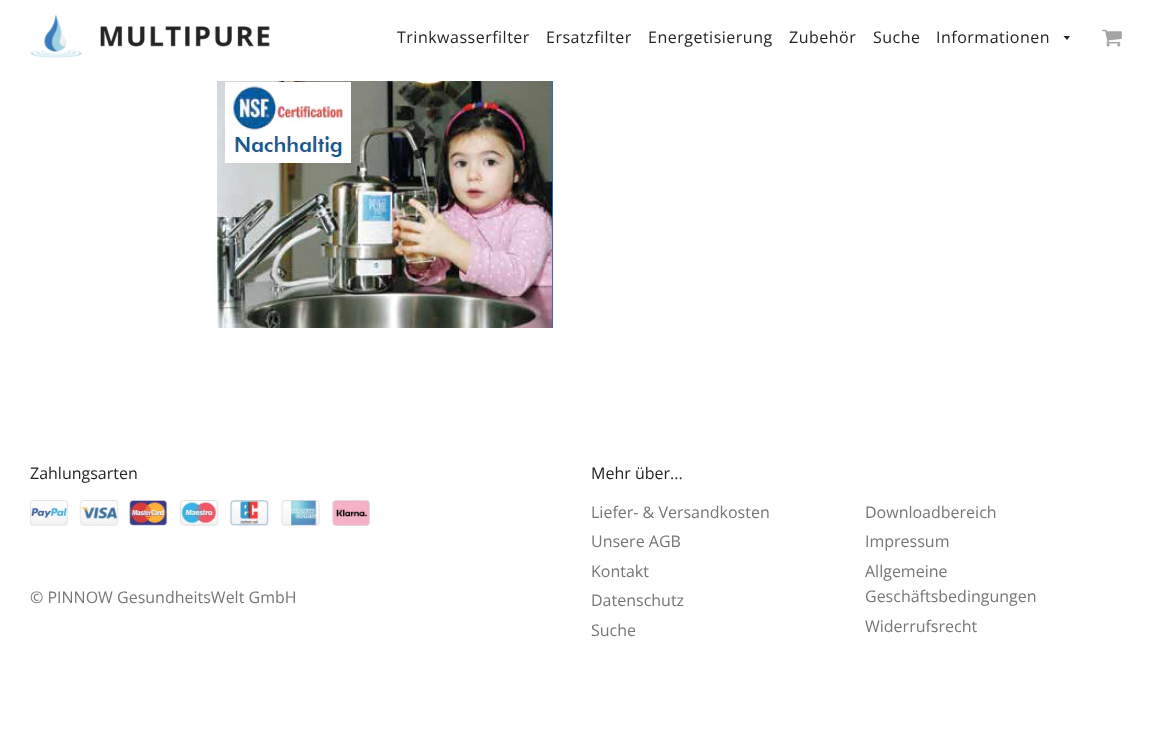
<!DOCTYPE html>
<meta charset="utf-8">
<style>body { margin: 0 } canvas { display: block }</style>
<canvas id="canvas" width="1152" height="751"></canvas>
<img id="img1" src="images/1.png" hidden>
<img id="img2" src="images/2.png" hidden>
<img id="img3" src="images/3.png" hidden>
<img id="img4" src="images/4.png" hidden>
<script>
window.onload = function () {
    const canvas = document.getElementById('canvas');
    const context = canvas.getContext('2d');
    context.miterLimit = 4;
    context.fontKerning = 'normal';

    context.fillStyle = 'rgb(255, 255, 255)';
    context.fillRect(0, 0, 1152, 751);
    context.drawImage(document.getElementById('img1'), 30, 14, 240, 44);
    context.fillStyle = 'rgb(35, 35, 38)';
    context.beginPath();
    context.moveTo(1063.5, 36);
    context.lineTo(1067, 40);
    context.lineTo(1070, 36);
    context.closePath();
    context.fill();
    context.drawImage(document.getElementById('img2'), 1102, 29, 20, 18);
    context.drawImage(document.getElementById('img3'), 217, 81, 336, 247);
    context.drawImage(document.getElementById('img4'), 30, 500, 340, 26);
    context.letterSpacing = '0.5px';
    context.font = '16px Open Sans';
    context.fillText('Trinkwasserfilter', 397, 43);
    context.fillText('Ersatzfilter', 546, 43);
    context.fillText('Energetisierung', 648, 43);
    context.fillText('Zubehör', 789, 43);
    context.fillText('Suche', 873, 43);
    context.fillText('Informationen', 936, 43);
    context.letterSpacing = '0px';
    context.fillText('Zahlungsarten', 30, 479);
    context.fillStyle = 'rgb(118, 118, 118)';
    context.fillText('© PINNOW GesundheitsWelt GmbH', 30, 603);
    context.fillStyle = 'rgb(35, 35, 38)';
    context.fillText('Mehr über...', 591, 479);
    context.fillStyle = 'rgb(118, 118, 118)';
    context.fillText('Liefer- & Versandkosten', 591, 518);
    context.fillText('Downloadbereich', 865, 518);
    context.fillText('Unsere AGB', 591, 547);
    context.fillText('Impressum', 865, 547);
    context.fillText('Kontakt', 591, 577);
    context.fillText('Allgemeine', 865, 577);
    context.fillText('Geschäftsbedingungen', 865, 602);
    context.fillText('Datenschutz', 591, 606);
    context.fillText('Suche', 591, 636);
    context.fillText('Widerrufsrecht', 865, 632);
};
</script>
